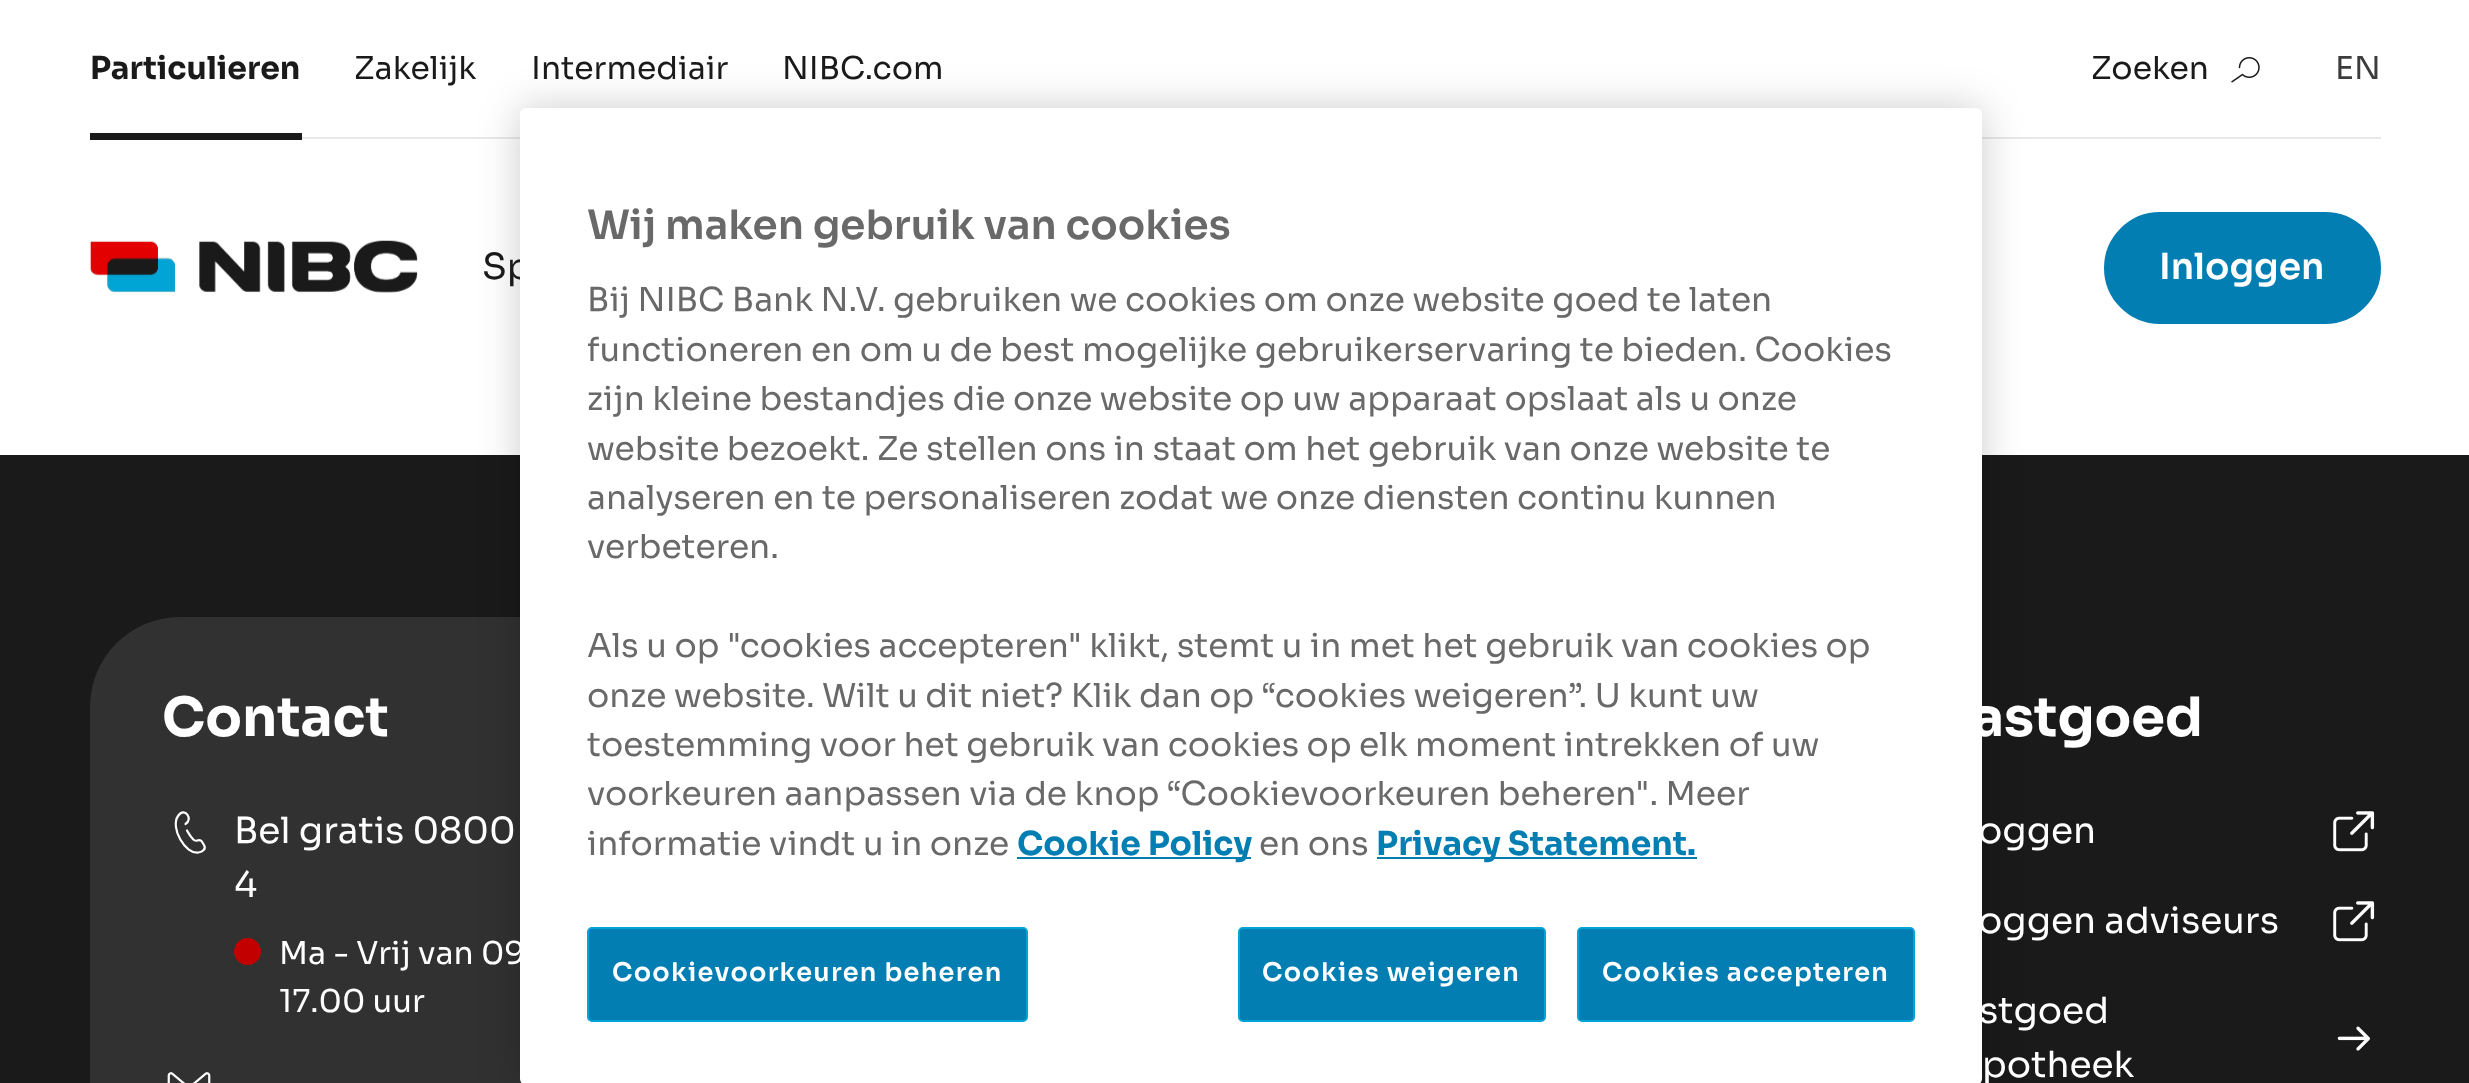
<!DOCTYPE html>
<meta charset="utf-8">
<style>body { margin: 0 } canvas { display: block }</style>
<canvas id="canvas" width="2469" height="1083"></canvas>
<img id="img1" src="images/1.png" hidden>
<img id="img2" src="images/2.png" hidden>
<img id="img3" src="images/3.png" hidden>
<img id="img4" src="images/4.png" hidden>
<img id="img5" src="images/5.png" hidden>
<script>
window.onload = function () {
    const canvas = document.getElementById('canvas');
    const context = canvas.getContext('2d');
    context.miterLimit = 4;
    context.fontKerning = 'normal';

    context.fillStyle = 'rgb(255, 255, 255)';
    context.fillRect(0, 0, 2469, 1083);
    context.fillStyle = 'rgb(232, 232, 232)';
    context.fillRect(302, 137, 2079, 2);
    context.fillStyle = 'rgb(26, 26, 26)';
    context.fillRect(90, 133, 212, 7);
    context.drawImage(document.getElementById('img1'), 2231, 57, 29, 26);
    context.drawImage(document.getElementById('img2'), 90, 240, 328, 53);
    context.fillStyle = 'rgb(3, 126, 179)';
    context.beginPath();
    context.roundRect(2105, 213, 275, 110, 55);
    context.fill();
    context.strokeStyle = 'rgb(3, 126, 179)';
    context.lineWidth = 2;
    context.stroke();
    context.fillStyle = 'rgb(26, 26, 26)';
    context.fillRect(0, 455, 2469, 628);
    context.fillStyle = 'rgb(49, 49, 49)';
    context.beginPath();
    context.roundRect(90, 617, 680, 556, 90);
    context.fill();
    context.fillStyle = 'rgba(0, 0, 0, 0.2)';
    context.filter = 'blur(20px)';
    context.beginPath();
    context.roundRect(520, 108, 1462, 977, 6);
    context.fill();
    context.filter = 'none';
    context.beginPath();
    context.moveTo(185.5, 824);
    context.bezierCurveTo(193.5, 819.5, 185, 806, 178, 816);
    context.bezierCurveTo(170, 827.5, 185, 854.5, 198.5, 852.5);
    context.bezierCurveTo(202.5, 852, 206.5, 849, 204, 845);
    context.lineTo(201.5, 841);
    context.bezierCurveTo(197, 837.5, 197, 844.5, 192, 838);
    context.bezierCurveTo(190, 836, 188.5, 833, 187, 830.5);
    context.strokeStyle = 'rgb(255, 255, 255)';
    context.lineWidth = 2.2;
    context.lineCap = 'round';
    context.lineJoin = 'round';
    context.stroke();
    context.fillStyle = 'rgb(195, 0, 0)';
    context.beginPath();
    context.arc(247.5, 951.5, 13.5, 0, 2 * Math.PI);
    context.fill();
    context.drawImage(document.getElementById('img3'), 167, 1072, 44, 11);
    context.drawImage(document.getElementById('img4'), 2333, 811, 42, 41);
    context.drawImage(document.getElementById('img4'), 2333, 901, 42, 41);
    context.drawImage(document.getElementById('img5'), 2337, 1026, 33, 25);
    context.font = 'bold 31.5px Sora';
    context.fillStyle = 'rgb(26, 26, 26)';
    context.fillText('Particulieren', 90, 79);
    context.font = '31.5px Sora';
    context.fillText('Zakelijk', 354, 79);
    context.fillText('Intermediair', 531, 79);
    context.fillText('NIBC.com', 782, 79);
    context.fillText('Zoeken', 2091, 79);
    context.fillStyle = 'rgb(60, 60, 60)';
    context.fillText('EN', 2335, 79);
    context.font = '36px Sora';
    context.fillStyle = 'rgb(26, 26, 26)';
    context.fillText('Sp', 482, 279);
    context.font = '600 36px Sora';
    context.fillStyle = 'rgb(255, 255, 255)';
    context.fillText('Inloggen', 2159, 279);
    context.beginPath();
    context.roundRect(520, 108, 1462, 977, 6);
    context.fill();
    context.font = '600 40.5px Sora';
    context.fillStyle = 'rgb(105, 105, 105)';
    context.fillText('Wij maken gebruik van cookies', 587, 239);
    context.font = '32.95px Sora';
    context.fillText('Bij NIBC Bank N.V. gebruiken we cookies om onze website goed te laten', 587, 311);
    context.fillText('functioneren en om u de best mogelijke gebruikerservaring te bieden. Cookies', 587, 361);
    context.fillText('zijn kleine bestandjes die onze website op uw apparaat opslaat als u onze', 587, 410);
    context.fillText('website bezoekt. Ze stellen ons in staat om het gebruik van onze website te', 587, 460);
    context.fillText('analyseren en te personaliseren zodat we onze diensten continu kunnen', 587, 509);
    context.fillText('verbeteren.', 587, 558);
    context.fillText('Als u op "cookies accepteren" klikt, stemt u in met het gebruik van cookies op', 587, 657);
    context.fillText('onze website. Wilt u dit niet? Klik dan op “cookies weigeren”. U kunt uw', 587, 707);
    context.fillText('toestemming voor het gebruik van cookies op elk moment intrekken of uw', 587, 756);
    context.fillText('voorkeuren aanpassen via de knop “Cookievoorkeuren beheren". Meer', 587, 805);
    context.fillText('informatie vindt u in onze', 587, 855);
    context.fillStyle = 'rgb(3, 126, 179)';
    context.fillRect(1017, 857, 234, 2);
    context.font = 'bold 32.95px Sora';
    context.fillText('Cookie Policy', 1017, 855);
    context.font = '32.95px Sora';
    context.fillStyle = 'rgb(105, 105, 105)';
    context.fillText('en ons', 1259, 855);
    context.fillStyle = 'rgb(3, 126, 179)';
    context.fillRect(1377, 857, 320, 2);
    context.font = 'bold 32.95px Sora';
    context.fillText('Privacy Statement.', 1376, 855);
    context.beginPath();
    context.roundRect(588, 928, 439, 93, 4);
    context.fill();
    context.strokeStyle = 'rgb(0, 164, 214)';
    context.lineWidth = 2;
    context.lineJoin = 'miter';
    context.stroke();
    context.letterSpacing = '1.25px';
    context.font = '600 25.6px Sora';
    context.fillStyle = 'rgb(255, 255, 255)';
    context.fillText('Cookievoorkeuren beheren', 612, 981);
    context.fillStyle = 'rgb(3, 126, 179)';
    context.beginPath();
    context.roundRect(1239, 928, 306, 93, 4);
    context.fill();
    context.stroke();
    context.fillStyle = 'rgb(255, 255, 255)';
    context.fillText('Cookies weigeren', 1262, 981);
    context.fillStyle = 'rgb(3, 126, 179)';
    context.beginPath();
    context.roundRect(1578, 928, 336, 93, 4);
    context.fill();
    context.stroke();
    context.fillStyle = 'rgb(255, 255, 255)';
    context.fillText('Cookies accepteren', 1602, 981);
    context.letterSpacing = '0px';
    context.font = 'bold 54px Sora';
    context.fillText('Contact', 162, 736);
    context.font = '36px Sora';
    context.fillText('Bel gratis 0800', 234, 843);
    context.fillText('4', 234, 897);
    context.font = '31.5px Sora';
    context.fillText('Ma - Vrij van 09', 279, 964);
    context.fillText('17.00 uur', 279, 1012);
    context.font = 'bold 54px Sora';
    context.fillText('astgoed', 1972, 736);
    context.font = '36px Sora';
    context.fillText('oggen', 1978, 843);
    context.fillText('oggen adviseurs', 1978, 933);
    context.fillText('stgoed', 1979, 1023);
    context.fillText('potheek', 1982, 1077);
};
</script>
